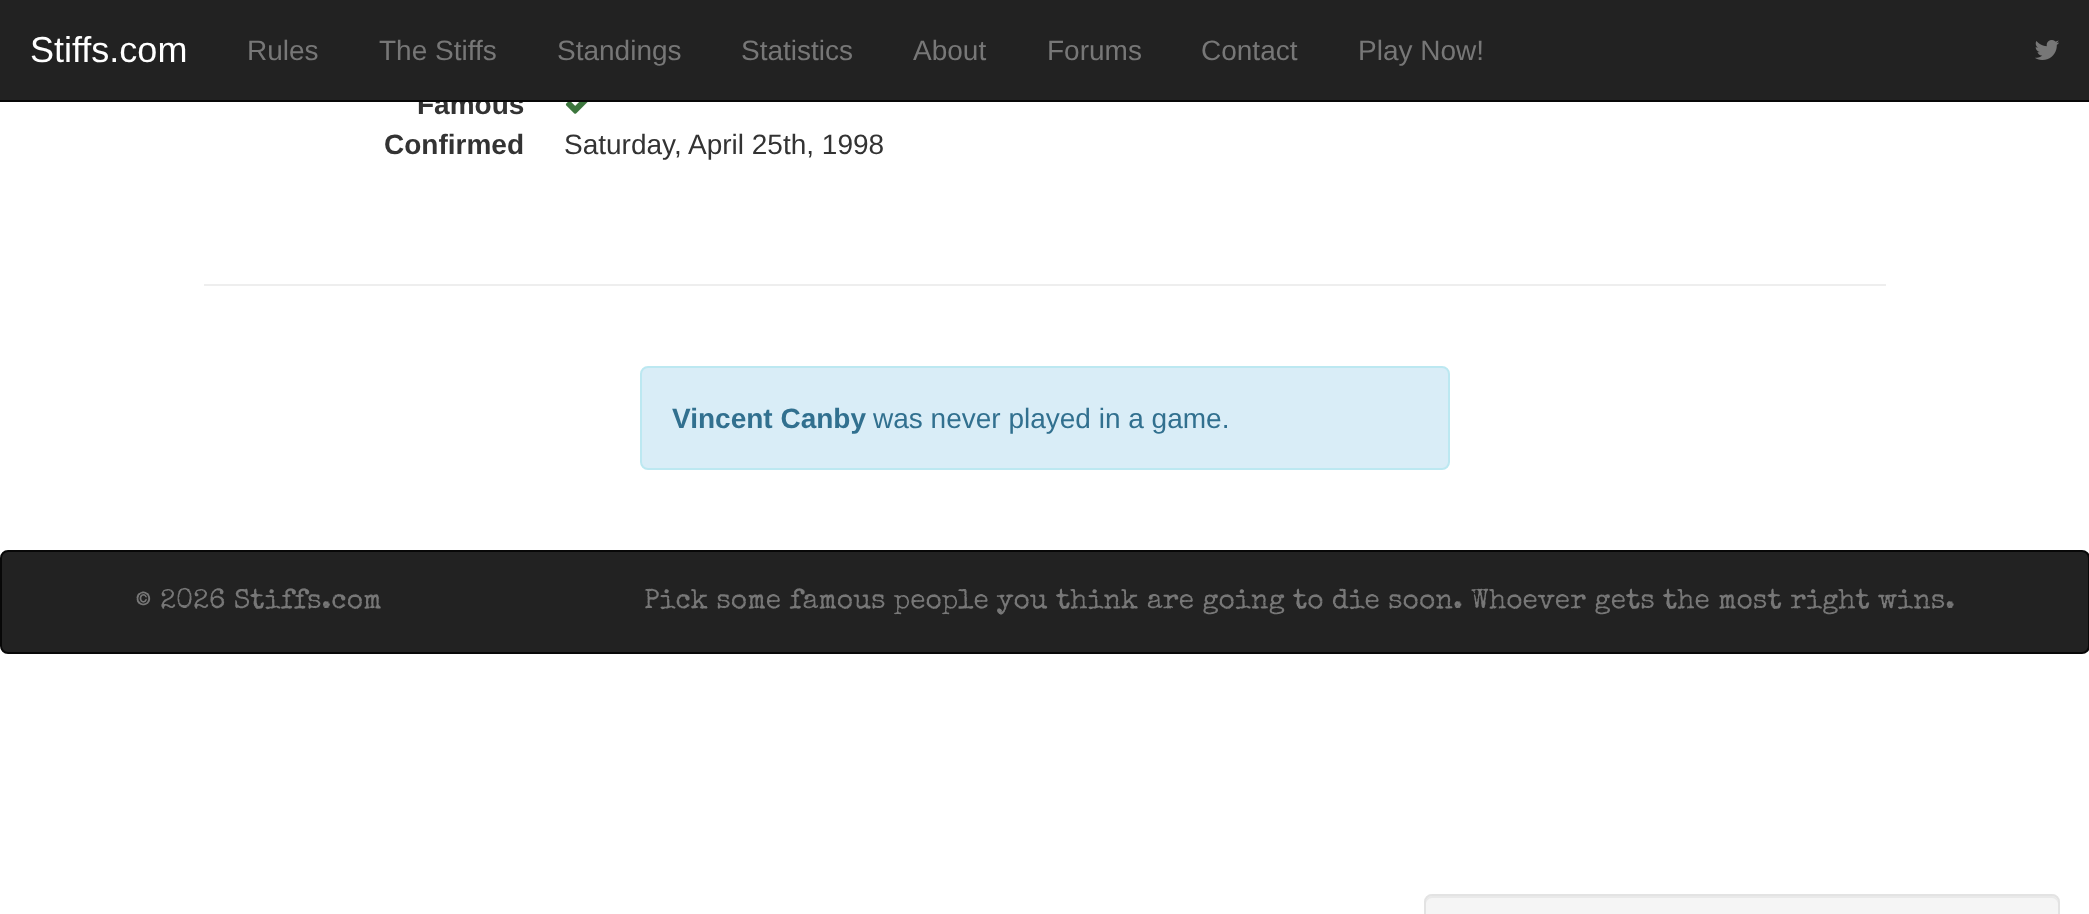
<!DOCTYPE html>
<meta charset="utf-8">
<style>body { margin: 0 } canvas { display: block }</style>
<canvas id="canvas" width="2089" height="914"></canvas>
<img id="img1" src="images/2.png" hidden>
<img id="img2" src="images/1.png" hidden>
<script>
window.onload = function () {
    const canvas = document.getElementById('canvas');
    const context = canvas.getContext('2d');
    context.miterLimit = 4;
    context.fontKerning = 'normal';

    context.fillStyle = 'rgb(255, 255, 255)';
    context.fillRect(0, 0, 2089, 914);
    context.drawImage(document.getElementById('img1'), 565, 102, 23, 12);
    context.fillStyle = 'rgb(238, 238, 238)';
    context.fillRect(204, 284, 1682, 2);
    context.fillStyle = 'rgb(217, 237, 247)';
    context.beginPath();
    context.roundRect(641, 367, 808, 102, 7);
    context.fill();
    context.strokeStyle = 'rgb(188, 232, 241)';
    context.lineWidth = 2;
    context.stroke();
    context.fillStyle = 'rgb(34, 34, 34)';
    context.beginPath();
    context.roundRect(1, 551, 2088, 102, 7);
    context.fill();
    context.strokeStyle = 'rgb(8, 8, 8)';
    context.stroke();
    context.fillStyle = 'rgb(245, 245, 245)';
    context.beginPath();
    context.roundRect(1424, 894, 636, 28, 8);
    context.fill();
    context.fillStyle = 'rgb(233, 233, 233)';
    context.beginPath();
    context.moveTo(1432, 898);
    context.lineTo(2052, 898);
    context.bezierCurveTo(2055, 898, 2058, 901, 2058, 904);
    context.lineTo(2058, 902);
    context.bezierCurveTo(2058, 899, 2055, 896, 2052, 896);
    context.lineTo(1432, 896);
    context.bezierCurveTo(1429, 896, 1426, 899, 1426, 902);
    context.lineTo(1426, 904);
    context.bezierCurveTo(1426, 901, 1429, 898, 1432, 898);
    context.closePath();
    context.fill();
    context.beginPath();
    context.roundRect(1425, 895, 634, 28, 7);
    context.strokeStyle = 'rgb(227, 227, 227)';
    context.stroke();
    context.font = 'bold 28px Liberation Sans';
    context.fillStyle = 'rgb(51, 51, 51)';
    context.fillText('Famous', 417, 114);
    context.fillStyle = 'rgb(34, 34, 34)';
    context.fillRect(0, 0, 2089, 100);
    context.drawImage(document.getElementById('img2'), 2035, 40, 24, 20);
    context.font = '28px Liberation Sans';
    context.fillStyle = 'rgb(119, 119, 119)';
    context.fillText('Play Now!', 1358, 60);
    context.fillText('Contact', 1201, 60);
    context.fillText('Forums', 1047, 60);
    context.fillText('About', 913, 60);
    context.fillText('Statistics', 741, 60);
    context.fillText('Standings', 557, 60);
    context.fillText('The Stiffs', 379, 60);
    context.fillText('Rules', 247, 60);
    context.font = '36px Liberation Sans';
    context.fillStyle = 'rgb(255, 255, 255)';
    context.fillText('Stiffs.com', 30, 62);
    context.fillStyle = 'rgb(8, 8, 8)';
    context.fillRect(0, 100, 2089, 2);
    context.font = 'bold 28px Liberation Sans';
    context.fillStyle = 'rgb(51, 51, 51)';
    context.fillText('Confirmed', 384, 154);
    context.font = '28px Liberation Sans';
    context.fillText('Saturday, April 25th, 1998', 564, 154);
    context.font = 'bold 28px Liberation Sans';
    context.fillStyle = 'rgb(49, 112, 143)';
    context.fillText('Vincent Canby', 672, 428);
    context.font = '28px Liberation Sans';
    context.fillText('was never played in a game.', 873, 428);
    context.font = '28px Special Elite';
    context.fillStyle = 'rgb(119, 119, 119)';
    context.fillText('© 2026 Stiffs.com', 135, 608);
    context.fillText('Pick some famous people you think are going to die soon. Whoever gets the most right wins.', 644, 608);
};
</script>
